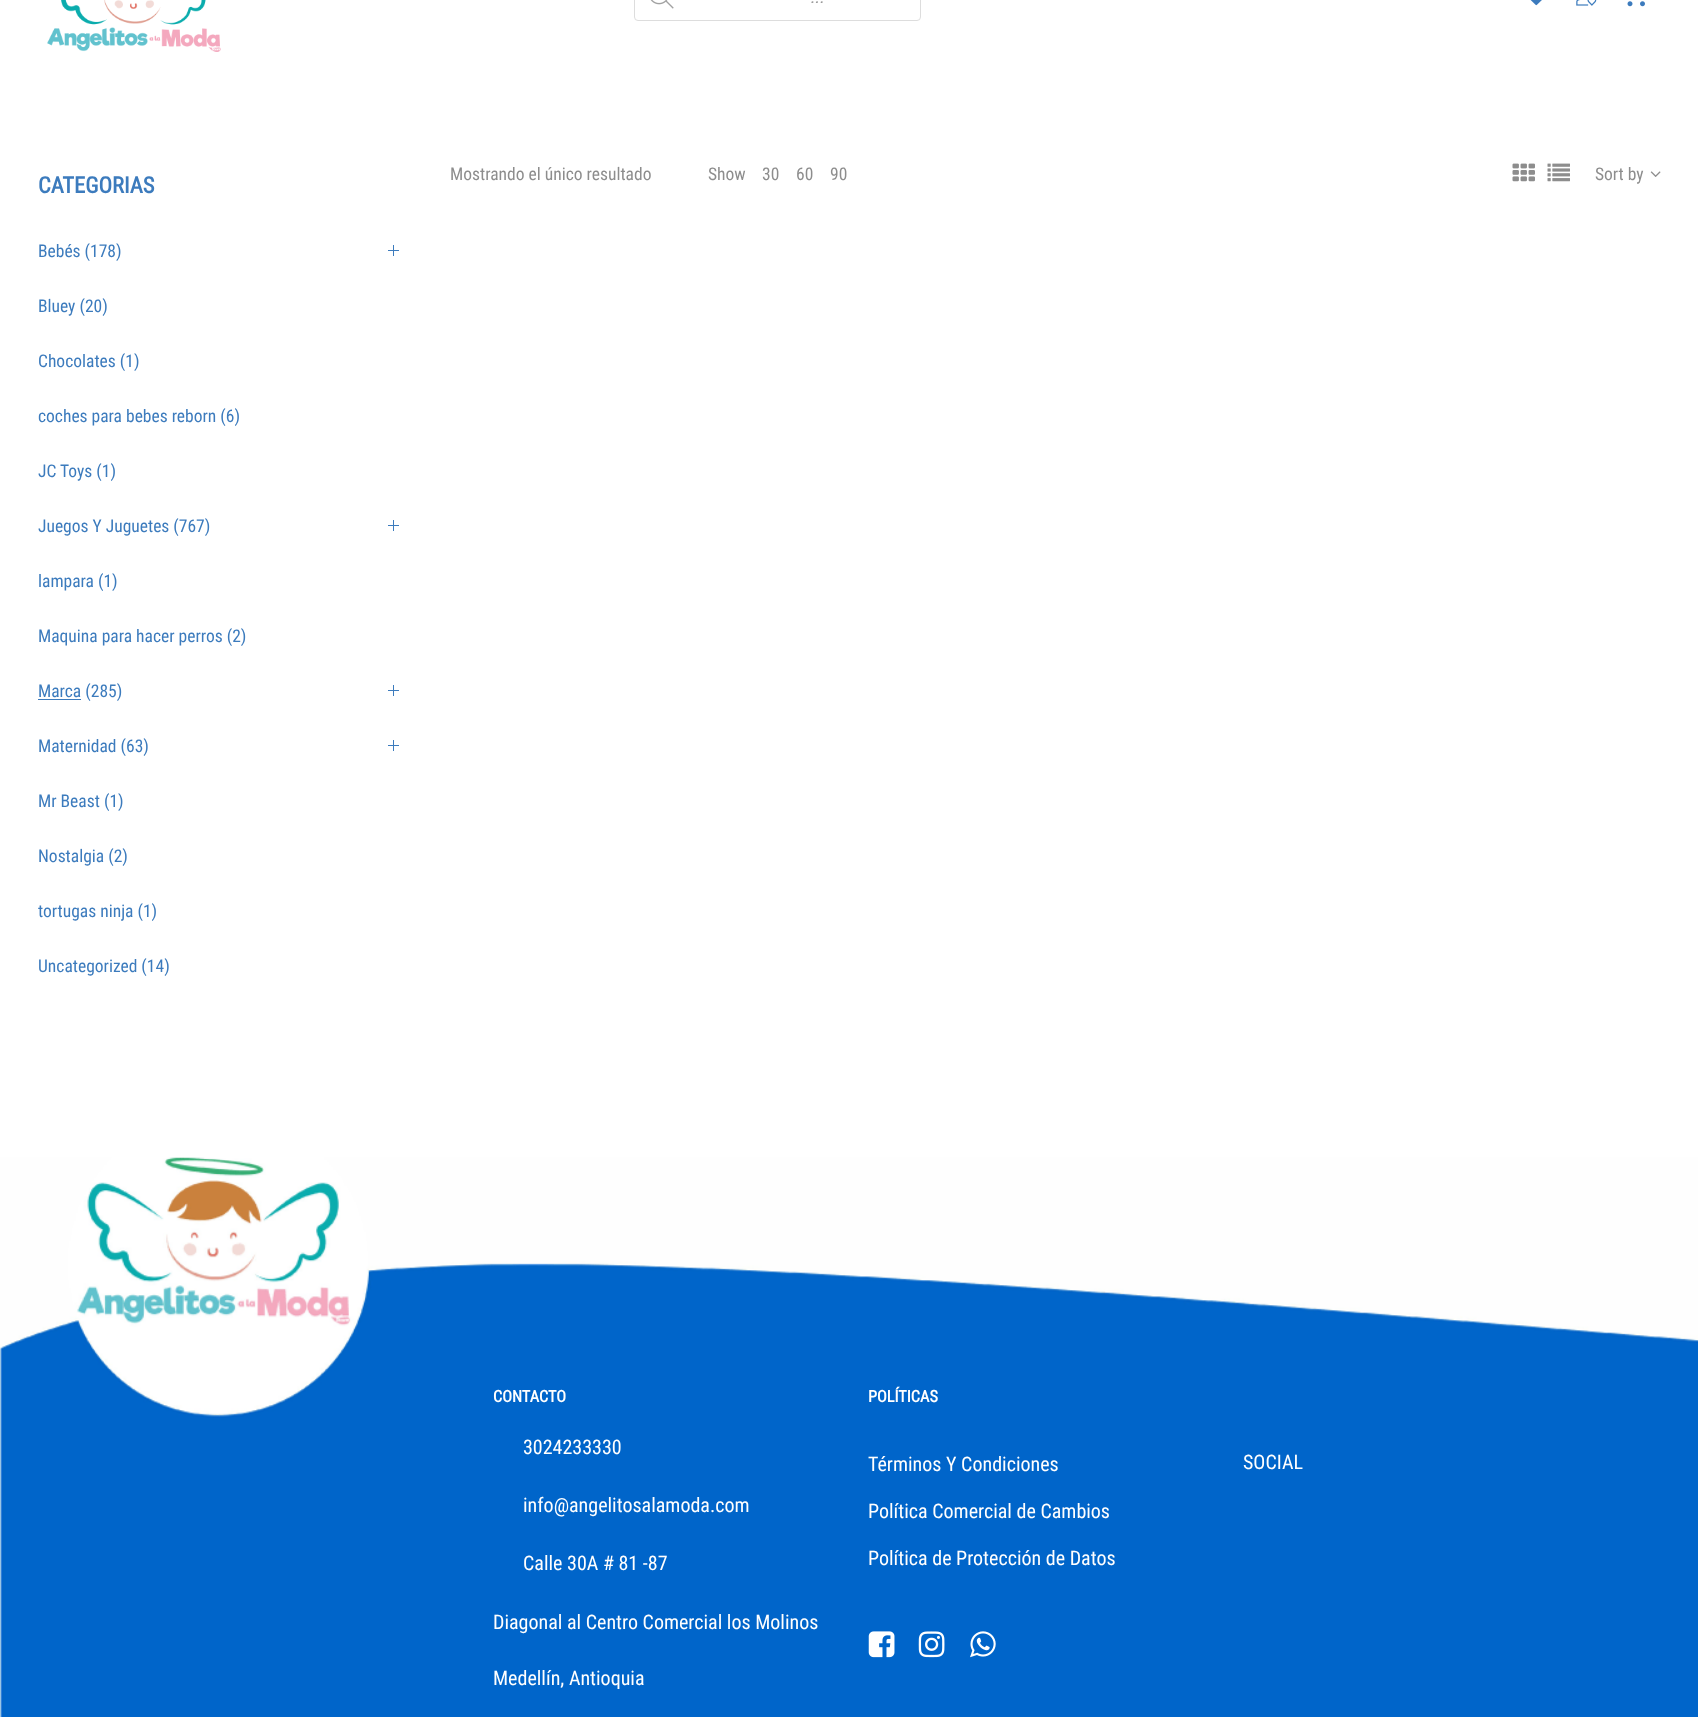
<!DOCTYPE html>
<meta charset="utf-8">
<style>body { margin: 0 } canvas { display: block }</style>
<canvas id="canvas" width="1698" height="1717"></canvas>
<img id="img1" src="images/1.png" hidden>
<img id="img2" src="images/2.png" hidden>
<img id="img3" src="images/3.png" hidden>
<img id="img4" src="images/4.png" hidden>
<img id="img5" src="images/5.png" hidden>
<img id="img6" src="images/6.png" hidden>
<img id="img7" src="images/7.png" hidden>
<img id="img8" src="images/8.png" hidden>
<img id="img9" src="images/9.png" hidden>
<img id="img10" src="images/10.png" hidden>
<img id="img11" src="images/11.png" hidden>
<img id="img12" src="images/12.png" hidden>
<script>
window.onload = function () {
    const canvas = document.getElementById('canvas');
    const context = canvas.getContext('2d');
    context.miterLimit = 4;
    context.fontKerning = 'normal';

    context.fillStyle = 'rgb(255, 255, 255)';
    context.fillRect(0, 0, 1698, 1717);
    context.drawImage(document.getElementById('img1'), 47, 0, 174, 52);
    context.beginPath();
    context.roundRect(634.5, -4.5, 286, 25, 3.5);
    context.strokeStyle = 'rgb(221, 221, 221)';
    context.stroke();
    context.drawImage(document.getElementById('img2'), 650, 0, 24, 9);
    context.drawImage(document.getElementById('img3'), 1530, 0, 12, 6);
    context.drawImage(document.getElementById('img4'), 1576, 0, 21, 6);
    context.drawImage(document.getElementById('img5'), 1627, 1, 18, 6);
    context.fillStyle = 'rgb(60, 123, 189)';
    context.fillRect(388, 250, 11, 1);
    context.fillRect(393, 245, 1, 11);
    context.fillRect(388, 525, 11, 1);
    context.fillRect(393, 520, 1, 11);
    context.fillRect(38, 699, 43, 1);
    context.fillRect(388, 690, 11, 1);
    context.fillRect(393, 685, 1, 11);
    context.fillRect(388, 745, 11, 1);
    context.fillRect(393, 740, 1, 11);
    context.drawImage(document.getElementById('img6'), 1512, 163, 23, 19);
    context.drawImage(document.getElementById('img7'), 1547, 163, 23, 19);
    context.drawImage(document.getElementById('img8'), 1650, 171, 11, 6);
    context.drawImage(document.getElementById('img9'), 0, 1157, 1698, 560);
    context.drawImage(document.getElementById('img10'), 868, 1631, 27, 27);
    context.drawImage(document.getElementById('img11'), 918, 1631, 27, 27);
    context.drawImage(document.getElementById('img12'), 970, 1631, 26, 27);
    context.font = 'italic 17.5px Roboto Condensed';
    context.fillStyle = 'rgb(153, 153, 153)';
    context.fillText('...', 810, 3);
    context.font = 'bold 22.5px Roboto Condensed';
    context.fillStyle = 'rgb(60, 123, 189)';
    context.fillText('CATEGORIAS', 38, 193);
    context.font = '17.5px Roboto Condensed';
    context.fillText('Bebés (178)', 38, 257);
    context.fillText('Bluey (20)', 38, 312);
    context.fillText('Chocolates (1)', 38, 367);
    context.fillText('coches para bebes reborn (6)', 38, 422);
    context.fillText('JC Toys (1)', 38, 477);
    context.fillText('Juegos Y Juguetes (767)', 38, 532);
    context.fillText('lampara (1)', 38, 587);
    context.fillText('Maquina para hacer perros (2)', 38, 642);
    context.fillText('Marca (285)', 38, 697);
    context.fillText('Maternidad (63)', 38, 752);
    context.fillText('Mr Beast (1)', 38, 807);
    context.fillText('Nostalgia (2)', 38, 862);
    context.fillText('tortugas ninja (1)', 38, 917);
    context.fillText('Uncategorized (14)', 38, 972);
    context.fillStyle = 'rgb(141, 141, 141)';
    context.fillText('Mostrando el único resultado', 450, 180);
    context.fillText('Show', 708, 180);
    context.fillText('30', 762, 180);
    context.fillText('60', 796, 180);
    context.fillText('90', 830, 180);
    context.fillText('Sort by', 1595, 180);
    context.font = 'bold 16.25px Roboto Condensed';
    context.fillStyle = 'rgb(255, 255, 255)';
    context.fillText('CONTACTO', 493, 1402);
    context.font = '20px Roboto Condensed';
    context.fillText('3024233330', 523, 1454);
    context.fillText('info@angelitosalamoda.com', 523, 1512);
    context.fillText('Calle 30A # 81 -87', 523, 1570);
    context.fillText('Diagonal al Centro Comercial los Molinos', 493, 1629);
    context.fillText('Medellín, Antioquia', 493, 1685);
    context.font = 'bold 16.25px Roboto Condensed';
    context.fillText('POLÍTICAS', 868, 1402);
    context.font = '20px Roboto Condensed';
    context.fillText('Términos Y Condiciones', 868, 1471);
    context.fillText('Política Comercial de Cambios', 868, 1518);
    context.fillText('Política de Protección de Datos', 868, 1565);
    context.fillText('SOCIAL', 1243, 1469);
};
</script>
